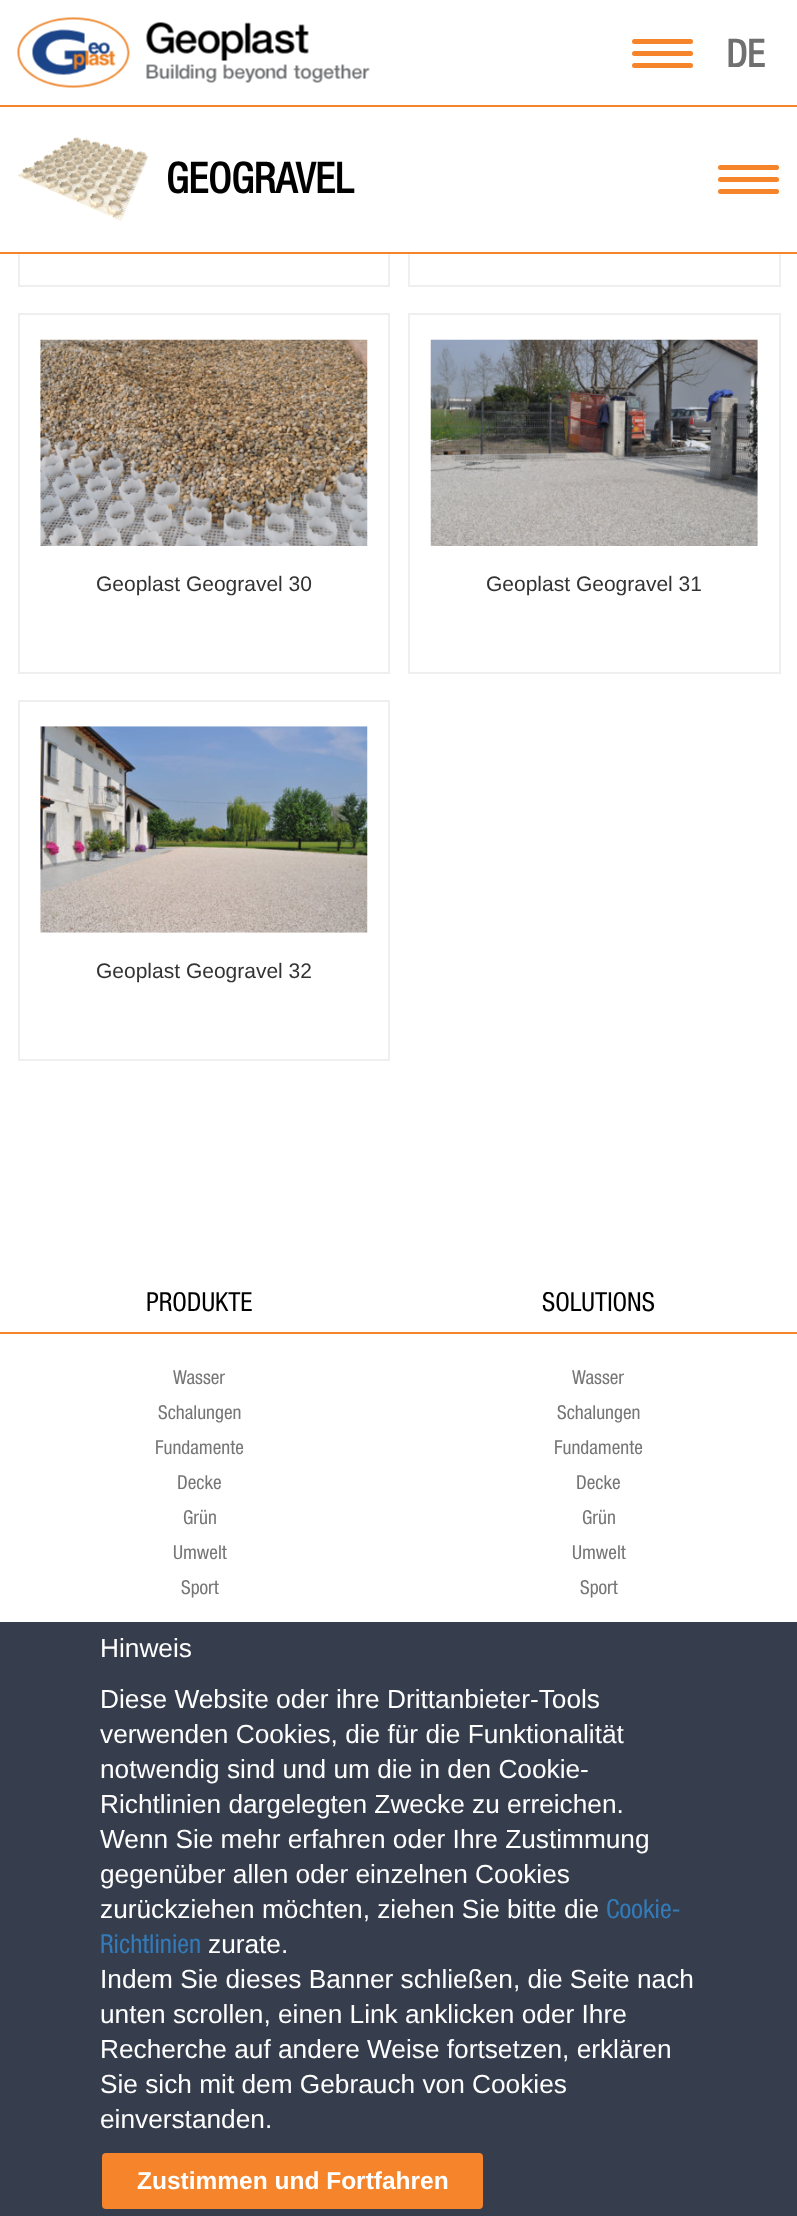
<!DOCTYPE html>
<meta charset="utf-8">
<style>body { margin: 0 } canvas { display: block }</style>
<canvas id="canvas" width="797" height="2216"></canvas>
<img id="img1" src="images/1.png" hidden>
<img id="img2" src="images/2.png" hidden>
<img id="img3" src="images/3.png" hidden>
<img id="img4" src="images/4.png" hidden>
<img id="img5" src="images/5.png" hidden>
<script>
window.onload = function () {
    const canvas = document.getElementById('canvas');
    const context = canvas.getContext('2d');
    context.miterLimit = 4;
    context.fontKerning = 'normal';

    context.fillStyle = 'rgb(255, 255, 255)';
    context.fillRect(0, 0, 797, 2216);
    context.strokeStyle = 'rgb(239, 239, 239)';
    context.lineWidth = 2;
    context.strokeRect(19, -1, 370, 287);
    context.strokeRect(409, -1, 371, 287);
    context.fillStyle = 'rgb(245, 132, 43)';
    context.fillRect(0, 105, 797, 2);
    context.fillStyle = 'rgb(255, 255, 255)';
    context.fillRect(18, 0, 763, 105);
    context.drawImage(document.getElementById('img1'), 17, 17, 353, 71);
    context.fillStyle = 'rgb(245, 132, 43)';
    context.beginPath();
    context.roundRect(632, 51, 61, 5, 2.5);
    context.fill();
    context.beginPath();
    context.roundRect(632, 39, 61, 5, 2.5);
    context.fill();
    context.beginPath();
    context.roundRect(632, 63, 61, 5, 2.5);
    context.fill();
    context.fillStyle = 'rgb(255, 255, 255)';
    context.fillRect(18, 107, 763, 145);
    context.fillStyle = 'rgb(245, 132, 43)';
    context.fillRect(0, 252, 797, 2);
    context.drawImage(document.getElementById('img2'), 17, 137, 132, 85);
    context.beginPath();
    context.roundRect(718, 177, 61, 5, 2.5);
    context.fill();
    context.beginPath();
    context.roundRect(718, 165, 61, 5, 2.5);
    context.fill();
    context.beginPath();
    context.roundRect(718, 189, 61, 5, 2.5);
    context.fill();
    context.strokeRect(19, 314, 370, 359);
    context.drawImage(document.getElementById('img3'), 40, 339, 328, 207);
    context.strokeRect(409, 314, 371, 359);
    context.drawImage(document.getElementById('img4'), 430, 339, 328, 207);
    context.strokeRect(19, 701, 370, 359);
    context.drawImage(document.getElementById('img5'), 40, 726, 328, 207);
    context.fillRect(0, 1332, 797, 2);
    context.fillStyle = 'rgb(54, 61, 77)';
    context.fillRect(0, 1622, 797, 594);
    context.fillStyle = 'rgb(245, 132, 43)';
    context.beginPath();
    context.roundRect(102, 2153, 381, 56, 4);
    context.fill();
    context.font = 'bold 38px Helvetica Neue';
    context.fillStyle = 'rgb(112, 112, 112)';
    context.fillText('DE', 726, 67);
    context.font = 'bold 42px Helvetica Neue';
    context.fillStyle = 'rgb(0, 0, 0)';
    context.fillText('GEOGRAVEL', 166, 193);
    context.font = '21px Liberation Sans';
    context.fillStyle = 'rgb(51, 51, 51)';
    context.fillText('Geoplast Geogravel 30', 96, 591);
    context.fillText('Geoplast Geogravel 31', 486, 591);
    context.fillText('Geoplast Geogravel 32', 96, 978);
    context.font = '26.25px Helvetica Neue';
    context.fillStyle = 'rgb(0, 0, 0)';
    context.fillText('PRODUKTE', 146, 1311);
    context.font = '19.25px Helvetica Neue';
    context.fillStyle = 'rgb(118, 118, 118)';
    context.fillText('Wasser', 173, 1384);
    context.fillText('Schalungen', 158, 1419);
    context.fillText('Fundamente', 155, 1454);
    context.fillText('Decke', 177, 1489);
    context.fillText('Grün', 183, 1524);
    context.fillText('Umwelt', 173, 1559);
    context.fillText('Sport', 181, 1594);
    context.font = '26.25px Helvetica Neue';
    context.fillStyle = 'rgb(0, 0, 0)';
    context.fillText('SOLUTIONS', 542, 1311);
    context.font = '19.25px Helvetica Neue';
    context.fillStyle = 'rgb(118, 118, 118)';
    context.fillText('Wasser', 572, 1384);
    context.fillText('Schalungen', 557, 1419);
    context.fillText('Fundamente', 554, 1454);
    context.fillText('Decke', 576, 1489);
    context.fillText('Grün', 582, 1524);
    context.fillText('Umwelt', 572, 1559);
    context.fillText('Sport', 580, 1594);
    context.font = '26.25px Liberation Sans';
    context.fillStyle = 'rgb(255, 255, 255)';
    context.fillText('Hinweis', 100, 1657);
    context.fillText('Diese Website oder ihre Drittanbieter-Tools', 100, 1708);
    context.fillText('verwenden Cookies, die für die Funktionalität', 100, 1743);
    context.fillText('notwendig sind und um die in den Cookie-', 100, 1778);
    context.fillText('Richtlinien dargelegten Zwecke zu erreichen.', 100, 1813);
    context.fillText('Wenn Sie mehr erfahren oder Ihre Zustimmung', 100, 1848);
    context.fillText('gegenüber allen oder einzelnen Cookies', 100, 1883);
    context.fillText('zurückziehen möchten, ziehen Sie bitte die', 100, 1918);
    context.font = '26.25px Helvetica Neue';
    context.fillStyle = 'rgb(51, 122, 183)';
    context.fillText('Cookie-', 606, 1918);
    context.fillText('Richtlinien', 100, 1953);
    context.font = '26.25px Liberation Sans';
    context.fillStyle = 'rgb(255, 255, 255)';
    context.fillText('zurate.', 208, 1953);
    context.fillText('Indem Sie dieses Banner schließen, die Seite nach', 100, 1988);
    context.fillText('unten scrollen, einen Link anklicken oder Ihre', 100, 2023);
    context.fillText('Recherche auf andere Weise fortsetzen, erklären', 100, 2058);
    context.fillText('Sie sich mit dem Gebrauch von Cookies', 100, 2093);
    context.fillText('einverstanden.', 100, 2128);
    context.font = 'bold 24.5px Liberation Sans';
    context.fillText('Zustimmen und Fortfahren', 137, 2189);
};
</script>
